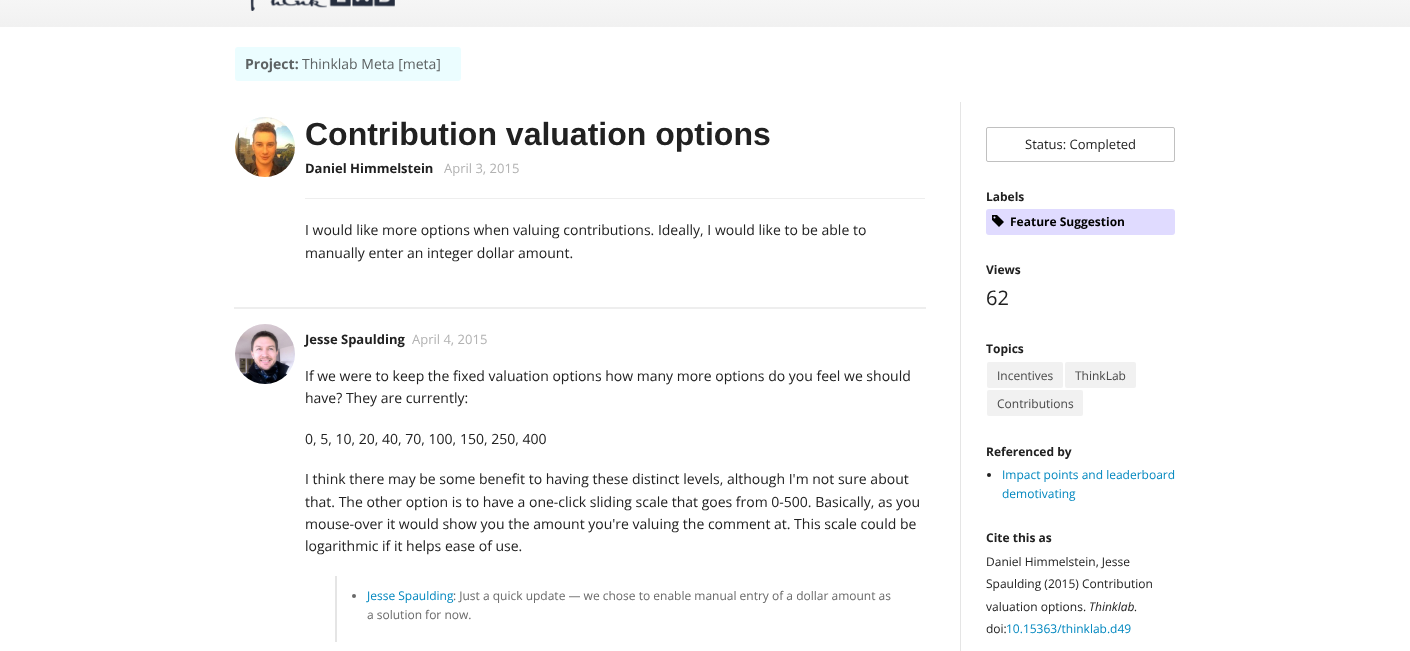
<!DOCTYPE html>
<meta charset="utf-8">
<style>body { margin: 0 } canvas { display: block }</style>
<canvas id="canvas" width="1410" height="651"></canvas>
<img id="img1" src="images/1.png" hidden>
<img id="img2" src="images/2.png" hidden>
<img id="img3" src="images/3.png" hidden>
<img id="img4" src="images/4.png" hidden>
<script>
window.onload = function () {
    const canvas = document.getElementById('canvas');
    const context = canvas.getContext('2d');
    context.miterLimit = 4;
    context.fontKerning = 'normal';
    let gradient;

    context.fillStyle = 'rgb(255, 255, 255)';
    context.fillRect(0, 0, 1410, 651);
    gradient = context.createLinearGradient(705, -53, 705, 27);
    gradient.addColorStop(0, 'rgb(255, 255, 255)');
    gradient.addColorStop(1, 'rgb(241, 241, 241)');
    context.fillStyle = gradient;
    context.fillRect(0, 0, 1410, 27);
    context.drawImage(document.getElementById('img1'), 250, 0, 145, 11);
    context.fillStyle = 'rgb(235, 253, 255)';
    context.beginPath();
    context.roundRect(235, 47, 226, 34, 3);
    context.fill();
    context.fillStyle = 'rgb(238, 238, 238)';
    context.fillRect(234, 307, 692, 2);
    context.drawImage(document.getElementById('img2'), 235, 117, 60, 60);
    context.fillRect(305, 198, 620, 1);
    context.drawImage(document.getElementById('img3'), 235, 324, 60, 60);
    context.fillStyle = 'rgb(229, 229, 229)';
    context.fillRect(335, 576, 2, 66);
    context.fillStyle = 'rgb(105, 105, 105)';
    context.beginPath();
    context.arc(354, 596, 2, 0, 2 * Math.PI);
    context.fill();
    context.fillStyle = 'rgb(229, 229, 229)';
    context.fillRect(960, 102, 1, 549);
    context.beginPath();
    context.roundRect(986.5, 127.5, 188, 34, 1.5);
    context.strokeStyle = 'rgb(192, 192, 192)';
    context.stroke();
    context.fillStyle = 'rgb(224, 219, 255)';
    context.beginPath();
    context.roundRect(986, 209, 189, 26, 3);
    context.fill();
    context.drawImage(document.getElementById('img4'), 992, 215, 12, 12);
    context.fillStyle = 'rgb(241, 241, 241)';
    context.beginPath();
    context.roundRect(987, 362, 76, 26, 2);
    context.fill();
    context.beginPath();
    context.roundRect(1065, 362, 71, 26, 2);
    context.fill();
    context.beginPath();
    context.roundRect(987, 390, 96, 26, 2);
    context.fill();
    context.fillStyle = 'rgb(33, 33, 33)';
    context.beginPath();
    context.arc(989, 475, 2, 0, 2 * Math.PI);
    context.fill();
    context.font = 'bold 14px Open Sans';
    context.fillStyle = 'rgb(94, 99, 100)';
    context.fillText('Project:', 245, 69);
    context.font = '14px Open Sans';
    context.fillText('Thinklab Meta [meta]', 302, 69);
    context.font = 'bold 32px Liberation Sans';
    context.fillStyle = 'rgb(33, 33, 33)';
    context.fillText('Contribution valuation options', 305, 145);
    context.font = 'bold 13px Open Sans';
    context.fillText('Daniel Himmelstein', 305, 173);
    context.font = '13px Open Sans';
    context.fillStyle = 'rgb(178, 178, 178)';
    context.fillText('April 3, 2015', 444, 173);
    context.font = '14px Open Sans';
    context.fillStyle = 'rgb(33, 33, 33)';
    context.fillText('I would like more options when valuing contributions. Ideally, I would like to be able to', 305, 235);
    context.fillText('manually enter an integer dollar amount.', 305, 258);
    context.font = 'bold 13px Open Sans';
    context.fillText('Jesse Spaulding', 305, 344);
    context.font = '13px Open Sans';
    context.fillStyle = 'rgb(178, 178, 178)';
    context.fillText('April 4, 2015', 412, 344);
    context.font = '14px Open Sans';
    context.fillStyle = 'rgb(33, 33, 33)';
    context.fillText('If we were to keep the fixed valuation options how many more options do you feel we should', 305, 381);
    context.fillText('have? They are currently:', 305, 403);
    context.fillText('0, 5, 10, 20, 40, 70, 100, 150, 250, 400', 305, 444);
    context.fillText('I think there may be some benefit to having these distinct levels, although I\'m not sure about', 305, 484);
    context.fillText('that. The other option is to have a one-click sliding scale that goes from 0-500. Basically, as you', 305, 507);
    context.fillText('mouse-over it would show you the amount you\'re valuing the comment at. This scale could be', 305, 529);
    context.fillText('logarithmic if it helps ease of use.', 305, 551);
    context.font = '12px Open Sans';
    context.fillStyle = 'rgb(1, 135, 191)';
    context.fillText('Jesse Spaulding', 367, 600);
    context.fillStyle = 'rgb(105, 105, 105)';
    context.fillText(': Just a quick update — we chose to enable manual entry of a dollar amount as', 453, 600);
    context.fillText('a solution for now.', 367, 619);
    context.font = '13px Open Sans';
    context.fillStyle = 'rgb(33, 33, 33)';
    context.fillText('Status: Completed', 1025, 149);
    context.font = 'bold 12px Open Sans';
    context.fillText('Labels', 986, 201);
    context.fillStyle = 'rgb(0, 0, 0)';
    context.fillText('Feature Suggestion', 1010, 226);
    context.fillStyle = 'rgb(33, 33, 33)';
    context.fillText('Views', 986, 274);
    context.font = '20px Open Sans';
    context.fillText('62', 986, 305);
    context.font = 'bold 12px Open Sans';
    context.fillText('Topics', 986, 353);
    context.font = '12px Open Sans';
    context.fillStyle = 'rgb(72, 72, 72)';
    context.fillText('Incentives', 997, 380);
    context.fillText('ThinkLab', 1075, 380);
    context.fillText('Contributions', 997, 408);
    context.font = 'bold 12px Open Sans';
    context.fillStyle = 'rgb(33, 33, 33)';
    context.fillText('Referenced by', 986, 456);
    context.font = '12px Open Sans';
    context.fillStyle = 'rgb(1, 135, 191)';
    context.fillText('Impact points and leaderboard', 1002, 479);
    context.fillText('demotivating', 1002, 498);
    context.font = 'bold 12px Open Sans';
    context.fillStyle = 'rgb(33, 33, 33)';
    context.fillText('Cite this as', 986, 542);
    context.font = '12px Open Sans';
    context.fillText('Daniel Himmelstein, Jesse', 986, 566);
    context.fillText('Spaulding (2015) Contribution', 986, 588);
    context.fillText('valuation options.', 986, 611);
    context.font = 'italic 12px Open Sans';
    context.fillText('Thinklab.', 1089, 611);
    context.font = '12px Open Sans';
    context.fillText('doi:', 986, 633);
    context.fillStyle = 'rgb(1, 135, 191)';
    context.fillText('10.15363/thinklab.d49', 1006, 633);
};
</script>
